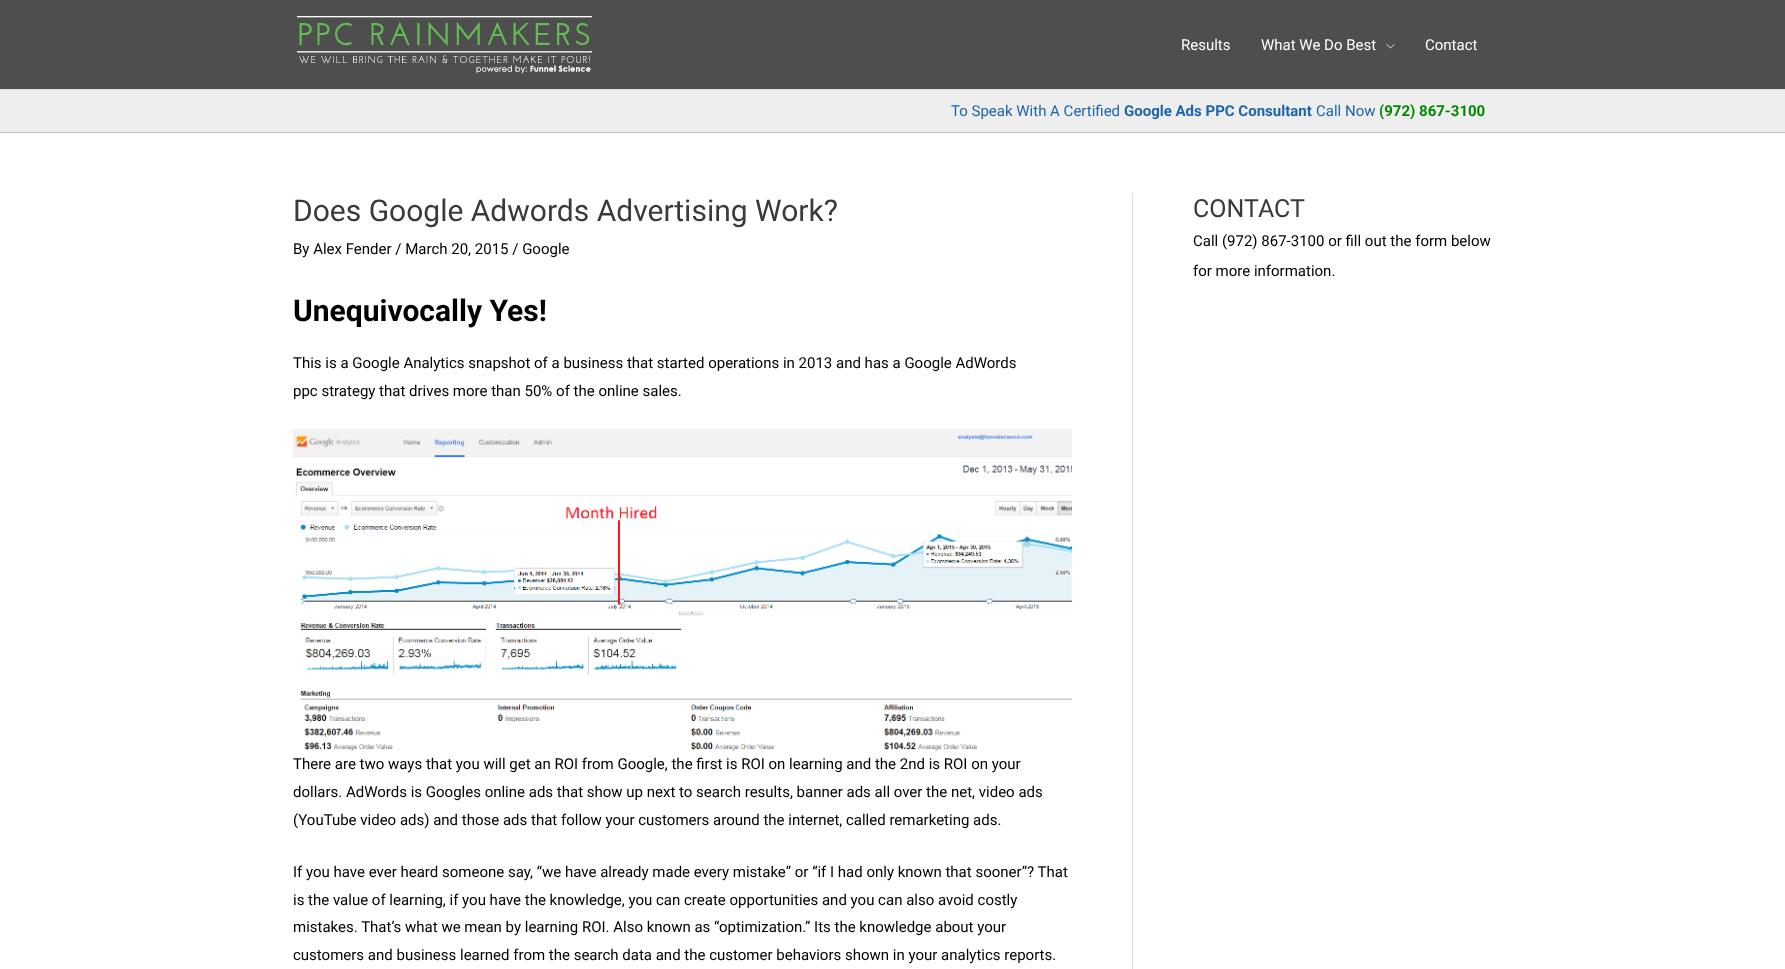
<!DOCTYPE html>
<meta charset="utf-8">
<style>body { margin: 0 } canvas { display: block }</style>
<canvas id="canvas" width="1785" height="969"></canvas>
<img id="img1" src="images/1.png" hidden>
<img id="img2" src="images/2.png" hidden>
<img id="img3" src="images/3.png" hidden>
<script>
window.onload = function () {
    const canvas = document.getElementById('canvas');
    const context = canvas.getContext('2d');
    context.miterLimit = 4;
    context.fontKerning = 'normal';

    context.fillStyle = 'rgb(255, 255, 255)';
    context.fillRect(0, 0, 1785, 969);
    context.fillStyle = 'rgb(78, 78, 78)';
    context.fillRect(0, 0, 1785, 89);
    context.fillStyle = 'rgb(221, 221, 221)';
    context.fillRect(0, 89, 1785, 1);
    context.drawImage(document.getElementById('img1'), 297, 16, 295, 58);
    context.drawImage(document.getElementById('img2'), 1386, 44, 9, 5);
    context.fillStyle = 'rgb(238, 238, 238)';
    context.fillRect(0, 90, 1785, 42);
    context.fillStyle = 'rgb(188, 188, 188)';
    context.fillRect(0, 132, 1785, 1);
    context.fillStyle = 'rgb(221, 221, 221)';
    context.fillRect(1132, 193, 1, 776);
    context.drawImage(document.getElementById('img3'), 293, 429, 779, 322);
    context.font = '15px Roboto';
    context.fillStyle = 'rgb(255, 255, 255)';
    context.fillText('Results', 1181, 50);
    context.fillText('What We Do Best', 1261, 50);
    context.fillText('Contact', 1425, 50);
    context.fillStyle = 'rgb(29, 101, 171)';
    context.fillText('To Speak With A Certified', 951, 116);
    context.font = 'bold 15px Roboto';
    context.fillText('Google Ads PPC Consultant', 1124, 116);
    context.font = '15px Roboto';
    context.fillText('Call Now', 1316, 116);
    context.font = 'bold 15px Roboto';
    context.fillStyle = 'rgb(0, 136, 0)';
    context.fillText('(972) 867-3100', 1379, 116);
    context.font = '30px Roboto';
    context.fillStyle = 'rgb(58, 58, 58)';
    context.fillText('Does Google Adwords Advertising Work?', 293, 221);
    context.font = '15px Roboto';
    context.fillStyle = 'rgb(0, 0, 0)';
    context.fillText('By Alex Fender / March 20, 2015 / Google', 293, 254);
    context.font = 'bold 30px Roboto';
    context.fillText('Unequivocally Yes!', 293, 321);
    context.font = '15px Roboto';
    context.fillText('This is a Google Analytics snapshot of a business that started operations in 2013 and has a Google AdWords', 293, 368);
    context.fillText('ppc strategy that drives more than 50% of the online sales.', 293, 396);
    context.fillText('There are two ways that you will get an ROI from Google, the first is ROI on learning and the 2nd is ROI on your', 293, 769);
    context.fillText('dollars. AdWords is Googles online ads that show up next to search results, banner ads all over the net, video ads', 293, 797);
    context.fillText('(YouTube video ads) and those ads that follow your customers around the internet, called remarketing ads.', 293, 825);
    context.fillText('If you have ever heard someone say, “we have already made every mistake” or “if I had only known that sooner”? That', 293, 877);
    context.fillText('is the value of learning, if you have the knowledge, you can create opportunities and you can also avoid costly', 293, 905);
    context.fillText('mistakes. That’s what we mean by learning ROI. Also known as “optimization.” Its the knowledge about your', 293, 932);
    context.fillText('customers and business learned from the search data and the customer behaviors shown in your analytics reports.', 293, 960);
    context.font = '25px Roboto';
    context.fillStyle = 'rgb(58, 58, 58)';
    context.fillText('CONTACT', 1193, 217);
    context.font = '15px Roboto';
    context.fillStyle = 'rgb(0, 0, 0)';
    context.fillText('Call (972) 867-3100 or fill out the form below', 1193, 246);
    context.fillText('for more information.', 1193, 276);
};
</script>
